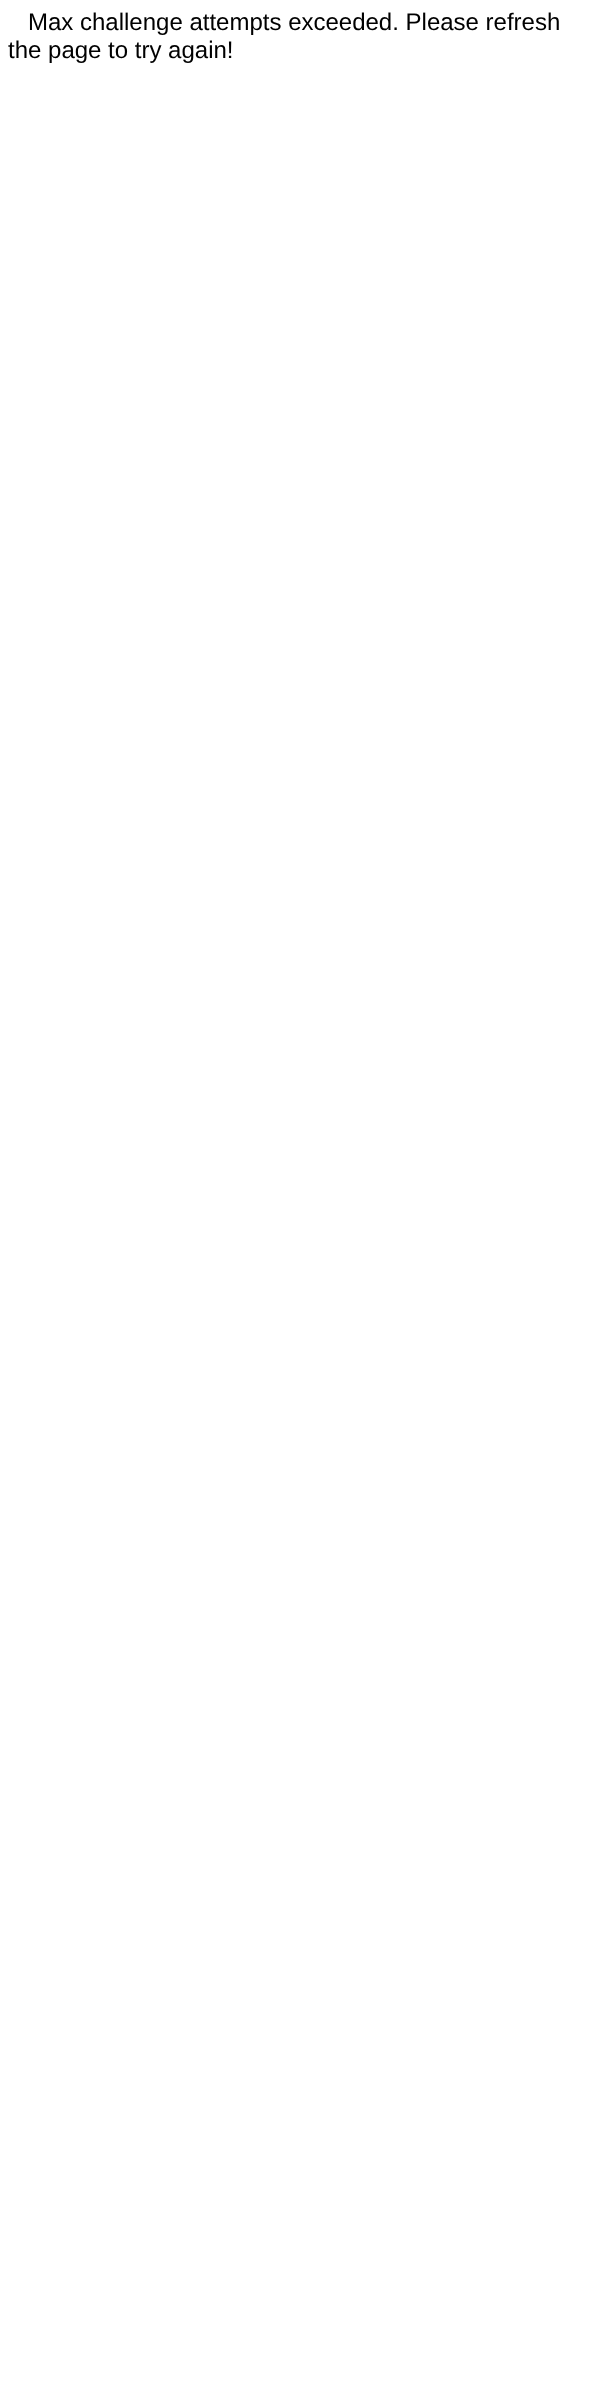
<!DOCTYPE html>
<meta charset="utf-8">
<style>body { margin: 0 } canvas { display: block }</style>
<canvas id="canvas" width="591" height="2404"></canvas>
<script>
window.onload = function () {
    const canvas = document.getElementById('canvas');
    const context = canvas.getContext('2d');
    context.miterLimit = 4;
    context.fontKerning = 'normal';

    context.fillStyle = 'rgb(255, 255, 255)';
    context.fillRect(0, 0, 591, 2404);
    context.font = '24px Liberation Sans';
    context.fillStyle = 'rgb(0, 0, 0)';
    context.fillText('Max challenge attempts exceeded. Please refresh', 28, 30);
    context.fillText('the page to try again!', 8, 58);
};
</script>
